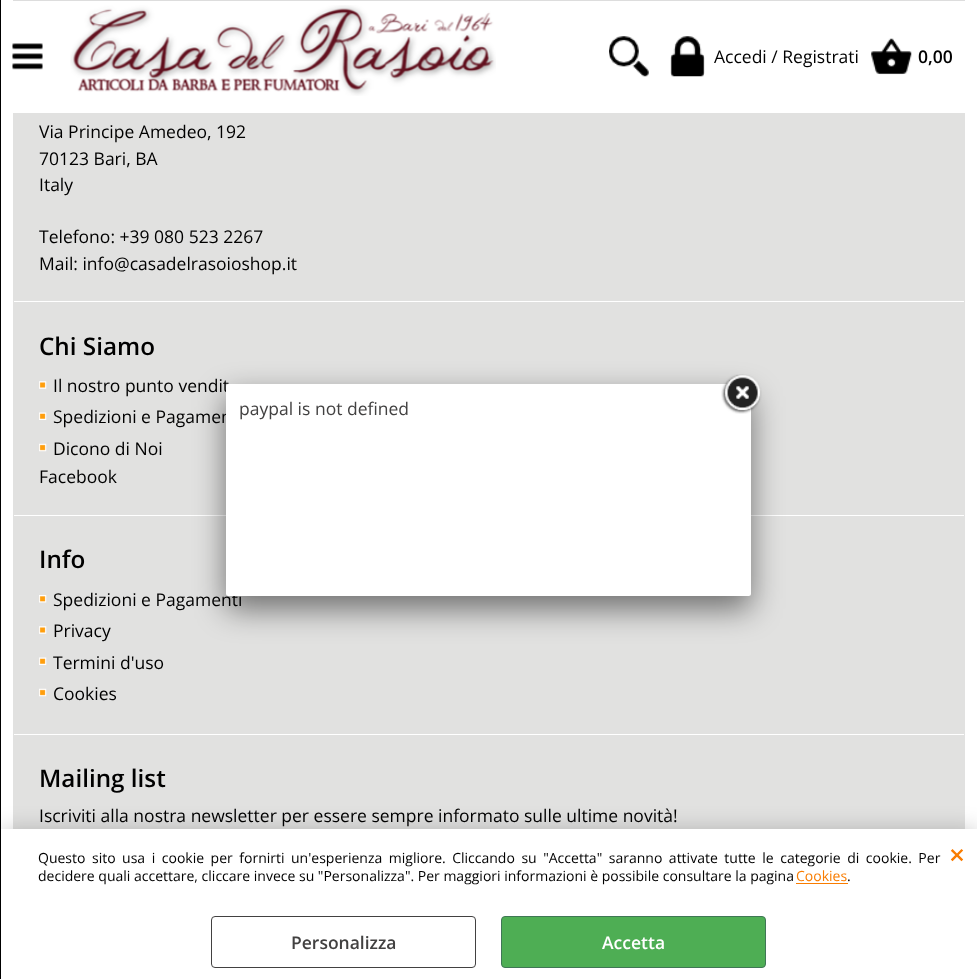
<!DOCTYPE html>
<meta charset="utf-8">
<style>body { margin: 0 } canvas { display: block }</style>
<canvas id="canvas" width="977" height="979"></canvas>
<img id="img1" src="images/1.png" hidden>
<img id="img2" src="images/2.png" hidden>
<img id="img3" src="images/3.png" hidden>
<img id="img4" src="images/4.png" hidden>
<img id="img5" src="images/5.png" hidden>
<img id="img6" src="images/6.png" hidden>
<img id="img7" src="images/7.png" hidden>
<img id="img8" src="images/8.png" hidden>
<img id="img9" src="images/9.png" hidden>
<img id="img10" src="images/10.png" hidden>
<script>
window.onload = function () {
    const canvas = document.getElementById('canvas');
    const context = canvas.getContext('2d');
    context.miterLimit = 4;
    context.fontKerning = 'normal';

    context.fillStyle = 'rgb(255, 255, 255)';
    context.fillRect(0, 0, 977, 979);
    context.fillStyle = 'rgb(225, 225, 224)';
    context.fillRect(13, 113, 952, 716);
    context.fillStyle = 'rgba(0, 0, 0, 0.2)';
    context.filter = 'blur(11px)';
    context.beginPath();
    context.rect(0, 829, 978, 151);
    context.fill();
    context.filter = 'none';
    context.fillStyle = 'rgb(0, 0, 0)';
    context.fillRect(0, 0, 1, 979);
    context.fillStyle = 'rgb(221, 221, 221)';
    context.fillRect(13, 0, 952, 1);
    context.drawImage(document.getElementById('img1'), 12, 43, 31, 27);
    context.drawImage(document.getElementById('img2'), 70, 5, 426, 91);
    context.drawImage(document.getElementById('img3'), 609, 36, 40, 41);
    context.drawImage(document.getElementById('img4'), 670, 36, 35, 41);
    context.drawImage(document.getElementById('img5'), 871, 38, 41, 37);
    context.fillStyle = 'rgb(255, 255, 255)';
    context.fillRect(14, 301, 950, 1);
    context.fillRect(14, 515, 950, 1);
    context.drawImage(document.getElementById('img6'), 39, 381, 8, 8);
    context.drawImage(document.getElementById('img7'), 39, 412, 8, 8);
    context.drawImage(document.getElementById('img8'), 39, 443, 8, 9);
    context.fillRect(14, 734, 950, 1);
    context.drawImage(document.getElementById('img9'), 39, 595, 8, 8);
    context.drawImage(document.getElementById('img6'), 39, 626, 8, 8);
    context.drawImage(document.getElementById('img7'), 39, 657, 8, 8);
    context.drawImage(document.getElementById('img8'), 39, 688, 8, 9);
    context.fillStyle = 'rgba(0, 0, 0, 0.5)';
    context.filter = 'blur(15.5px)';
    context.beginPath();
    context.roundRect(226, 396, 525, 213, 2.5);
    context.fill();
    context.filter = 'none';
    context.fillStyle = 'rgb(255, 255, 255)';
    context.fillRect(1, 829, 976, 150);
    context.fillStyle = 'rgb(249, 124, 0)';
    context.fillRect(796, 883, 52, 1);
    context.beginPath();
    context.roundRect(211.5, 916.5, 264, 51, 3.5);
    context.strokeStyle = 'rgb(66, 65, 65)';
    context.stroke();
    context.fillStyle = 'rgb(78, 174, 84)';
    context.beginPath();
    context.roundRect(501.5, 916.5, 264, 51, 3.5);
    context.fill();
    context.strokeStyle = 'rgb(63, 119, 85)';
    context.stroke();
    context.font = '17.5px Open Sans';
    context.fillStyle = 'rgb(0, 0, 0)';
    context.fillText('Accedi / Registrati', 714, 63);
    context.font = '600 17.5px Open Sans';
    context.fillText('0,00', 918, 63);
    context.font = '17.5px Open Sans';
    context.fillText('Via Principe Amedeo, 192', 39, 138);
    context.fillText('70123 Bari, BA', 39, 165);
    context.fillText('Italy', 39, 191);
    context.fillText('Telefono: +39 080 523 2267', 39, 243);
    context.fillText('Mail: info@casadelrasoioshop.it', 39, 270);
    context.font = '600 24.25px Open Sans';
    context.fillText('Chi Siamo', 39, 355);
    context.font = '17.5px Open Sans';
    context.fillText('Il nostro punto vendit', 53, 392);
    context.fillText('Spedizioni e Pagamen', 53, 423);
    context.fillText('Dicono di Noi', 53, 455);
    context.fillText('Facebook', 39, 483);
    context.font = '600 24.25px Open Sans';
    context.fillText('Info', 39, 568);
    context.font = '17.5px Open Sans';
    context.fillText('Spedizioni e Pagamenti', 53, 606);
    context.fillText('Privacy', 53, 637);
    context.fillText('Termini d\'uso', 53, 669);
    context.fillText('Cookies', 53, 700);
    context.font = '600 24.25px Open Sans';
    context.fillText('Mailing list', 39, 787);
    context.font = '17.5px Open Sans';
    context.fillText('Iscriviti alla nostra newsletter per essere sempre informato sulle ultime novità!', 39, 822);
    context.fillStyle = 'rgb(255, 255, 255)';
    context.beginPath();
    context.roundRect(226, 384, 525, 212, 2.5);
    context.fill();
    context.fillStyle = 'rgb(66, 65, 65)';
    context.fillText('paypal is not defined', 239, 415);
    context.drawImage(document.getElementById('img10'), 721, 374, 41, 40);
    context.wordSpacing = '2.9px';
    context.font = '14px Open Sans';
    context.fillStyle = 'rgb(0, 0, 0)';
    context.fillText('Questo sito usa i cookie per fornirti un\'esperienza migliore. Cliccando su "Accetta" saranno attivate tutte le categorie di cookie. Per', 38, 863);
    context.wordSpacing = '0px';
    context.fillText('decidere quali accettare, cliccare invece su "Personalizza". Per maggiori informazioni è possibile consultare la pagina', 38, 881);
    context.fillStyle = 'rgb(249, 124, 0)';
    context.fillText('Cookies', 796, 881);
    context.fillStyle = 'rgb(0, 0, 0)';
    context.fillText('.', 847, 881);
    context.font = '600 28px Open Sans';
    context.fillStyle = 'rgb(249, 124, 0)';
    context.fillText('×', 949, 865);
    context.font = '600 17.5px Open Sans';
    context.fillStyle = 'rgb(66, 65, 65)';
    context.fillText('Personalizza', 291, 949);
    context.fillStyle = 'rgb(255, 255, 255)';
    context.fillText('Accetta', 602, 949);
};
</script>
